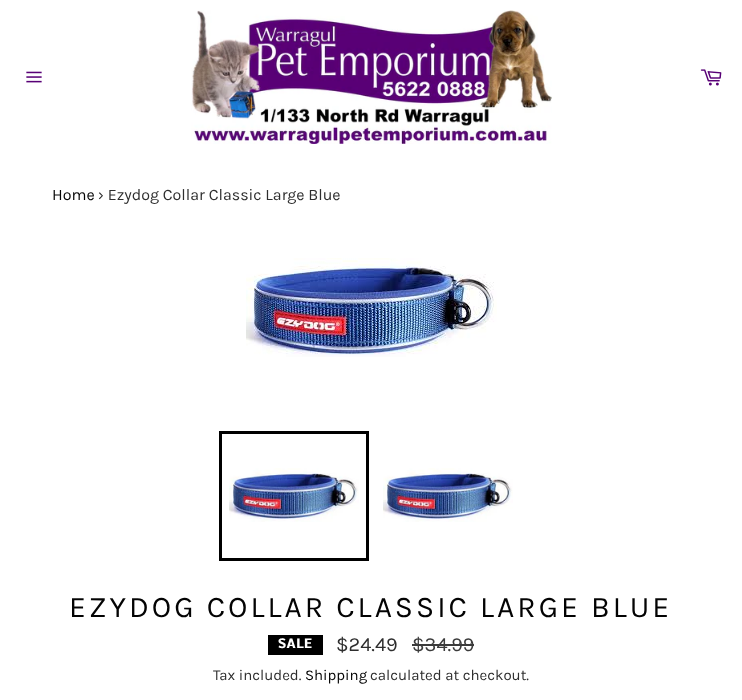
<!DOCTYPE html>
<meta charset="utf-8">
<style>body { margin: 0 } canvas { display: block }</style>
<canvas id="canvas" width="742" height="700"></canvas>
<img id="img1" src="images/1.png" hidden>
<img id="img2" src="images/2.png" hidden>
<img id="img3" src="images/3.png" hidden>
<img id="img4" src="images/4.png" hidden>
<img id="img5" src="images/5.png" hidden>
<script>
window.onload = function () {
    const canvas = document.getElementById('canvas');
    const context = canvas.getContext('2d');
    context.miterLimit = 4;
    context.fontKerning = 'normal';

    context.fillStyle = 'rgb(255, 255, 255)';
    context.fillRect(0, 0, 742, 700);
    context.drawImage(document.getElementById('img1'), 26, 71, 16, 12);
    context.drawImage(document.getElementById('img2'), 191, 10, 361, 134);
    context.drawImage(document.getElementById('img3'), 700, 69, 22, 17);
    context.drawImage(document.getElementById('img4'), 246, 258, 251, 99);
    context.drawImage(document.getElementById('img5'), 229, 468, 130, 54);
    context.strokeStyle = 'rgb(0, 0, 0)';
    context.lineWidth = 3;
    context.strokeRect(220.5, 432.5, 147, 127);
    context.drawImage(document.getElementById('img5'), 383, 468, 130, 54);
    context.fillStyle = 'rgb(0, 0, 0)';
    context.fillRect(268, 635, 55, 20);
    context.fillStyle = 'rgb(59, 59, 59)';
    context.fillRect(412, 644, 62, 2);
    context.font = '16px Karla';
    context.fillStyle = 'rgb(3, 3, 3)';
    context.fillText('Home', 52, 200);
    context.fillStyle = 'rgb(46, 46, 46)';
    context.fillText('› Ezydog Collar Classic Large Blue', 98, 200);
    context.letterSpacing = '3px';
    context.font = '30px Karla';
    context.fillStyle = 'rgb(3, 3, 3)';
    context.fillText('EZYDOG COLLAR CLASSIC LARGE BLUE', 69, 617);
    context.letterSpacing = '0.5px';
    context.font = 'bold 12px Nobile';
    context.fillStyle = 'rgb(255, 255, 255)';
    context.fillText('SALE', 278, 648);
    context.letterSpacing = '0px';
    context.font = '20px Karla';
    context.fillStyle = 'rgb(46, 46, 46)';
    context.fillText('$24.49', 336, 651);
    context.fillStyle = 'rgb(59, 59, 59)';
    context.fillText('$34.99', 412, 651);
    context.font = '15px Karla';
    context.fillStyle = 'rgb(46, 46, 46)';
    context.fillText('Tax included.', 213, 680);
    context.fillStyle = 'rgb(3, 3, 3)';
    context.fillText('Shipping', 305, 680);
    context.fillStyle = 'rgb(46, 46, 46)';
    context.fillText('calculated at checkout.', 370, 680);
};
</script>
